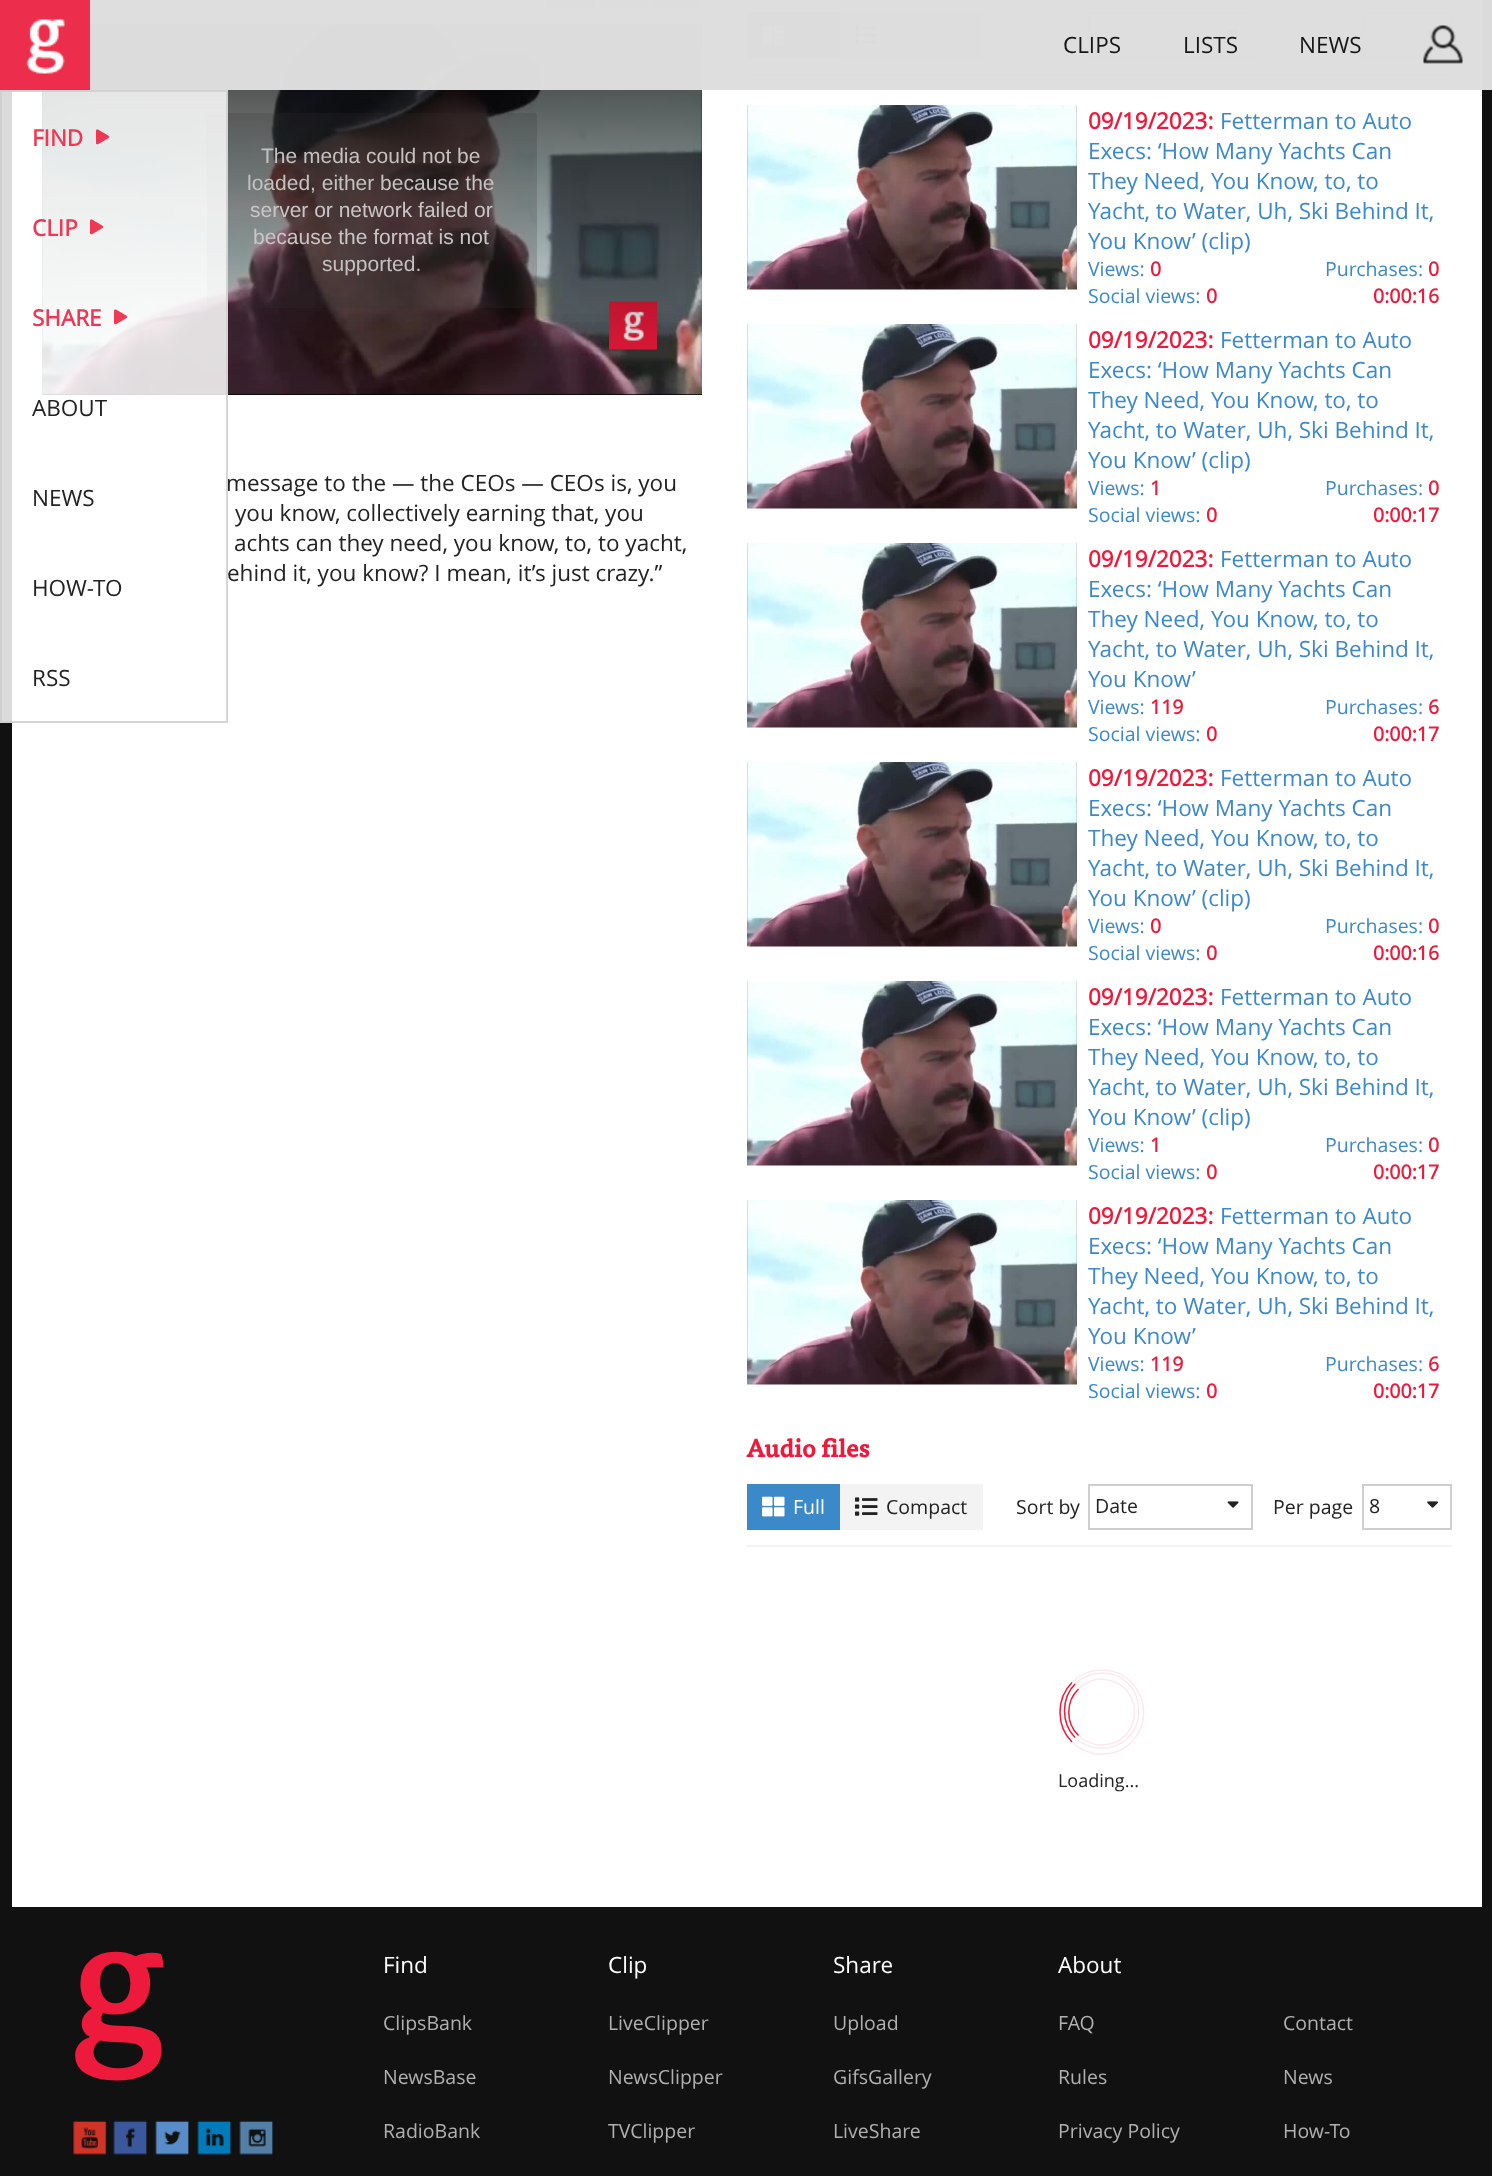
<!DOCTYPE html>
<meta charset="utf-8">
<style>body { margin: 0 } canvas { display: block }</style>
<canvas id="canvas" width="1492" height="2176"></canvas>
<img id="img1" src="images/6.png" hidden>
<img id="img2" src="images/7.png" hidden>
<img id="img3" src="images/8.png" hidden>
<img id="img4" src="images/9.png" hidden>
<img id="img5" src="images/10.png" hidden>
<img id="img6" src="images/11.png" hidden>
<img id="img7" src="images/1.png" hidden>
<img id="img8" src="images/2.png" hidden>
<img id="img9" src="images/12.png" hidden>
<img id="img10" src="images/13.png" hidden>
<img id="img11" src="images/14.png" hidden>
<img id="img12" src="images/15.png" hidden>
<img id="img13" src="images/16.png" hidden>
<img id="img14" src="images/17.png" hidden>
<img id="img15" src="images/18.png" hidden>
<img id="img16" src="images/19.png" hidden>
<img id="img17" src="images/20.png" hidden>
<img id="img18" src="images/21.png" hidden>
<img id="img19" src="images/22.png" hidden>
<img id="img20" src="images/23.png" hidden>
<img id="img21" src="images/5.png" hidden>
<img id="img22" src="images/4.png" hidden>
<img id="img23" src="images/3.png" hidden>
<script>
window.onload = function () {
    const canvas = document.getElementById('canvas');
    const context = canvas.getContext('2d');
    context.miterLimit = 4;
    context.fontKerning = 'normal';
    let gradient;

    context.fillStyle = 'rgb(17, 17, 17)';
    context.fillRect(0, 0, 1492, 2176);
    context.fillStyle = 'rgb(255, 255, 255)';
    context.fillRect(12, 0, 1470, 1907);
    context.fillStyle = 'rgb(203, 203, 203)';
    context.beginPath();
    context.roundRect(546, -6, 48, 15, 6);
    context.fill();
    context.beginPath();
    context.roundRect(600, -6, 48, 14, 6);
    context.fill();
    context.beginPath();
    context.roundRect(654, -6, 48, 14, 6);
    context.fill();
    context.fillStyle = 'rgb(0, 0, 0)';
    context.fillRect(42, 394, 660, 1);
    context.drawImage(document.getElementById('img1'), 42, 24, 660, 371);
    context.drawImage(document.getElementById('img2'), 609, 301, 48, 49);
    gradient = context.createLinearGradient(372, 24, 372, 395);
    gradient.addColorStop(0, 'rgba(0, 0, 0, 0.8)');
    gradient.addColorStop(1, 'rgba(0, 0, 0, 0)');
    context.fillStyle = gradient;
    context.fillRect(42, 24, 660, 361);
    context.fillStyle = 'rgb(243, 243, 243)';
    context.fillRect(747, 74, 705, 2);
    context.fillStyle = 'rgb(60, 137, 202)';
    context.fillRect(747, 12, 93, 47);
    context.drawImage(document.getElementById('img3'), 762, 25, 23, 20);
    context.fillStyle = 'rgb(243, 243, 243)';
    context.fillRect(840, 12, 143, 47);
    context.drawImage(document.getElementById('img4'), 855, 25, 23, 20);
    context.strokeStyle = 'rgb(206, 206, 206)';
    context.lineWidth = 2;
    context.strokeRect(1089, 13, 163, 45);
    context.drawImage(document.getElementById('img5'), 1227, 29, 12, 8);
    context.strokeRect(1363, 13, 88, 45);
    context.drawImage(document.getElementById('img6'), 1427, 29, 11, 8);
    context.fillStyle = 'rgba(17, 17, 17, 0.9)';
    context.fillRect(12, 0, 1470, 90);
    context.fillStyle = 'rgba(242, 242, 242, 0.9)';
    context.fillRect(0, 0, 1492, 90);
    context.drawImage(document.getElementById('img7'), 1423, 25, 40, 39);
    context.drawImage(document.getElementById('img8'), 0, 0, 90, 90);
    context.fillStyle = 'rgba(50, 50, 50, 0.21)';
    context.beginPath();
    context.roundRect(207, 113, 330, 195, 3);
    context.fill();
    context.drawImage(document.getElementById('img9'), 747, 105, 330, 185);
    context.drawImage(document.getElementById('img10'), 747, 324, 330, 185);
    context.drawImage(document.getElementById('img11'), 747, 543, 330, 185);
    context.drawImage(document.getElementById('img9'), 747, 762, 330, 185);
    context.drawImage(document.getElementById('img10'), 747, 981, 330, 185);
    context.drawImage(document.getElementById('img11'), 747, 1200, 330, 185);
    context.fillStyle = 'rgb(243, 243, 243)';
    context.fillRect(747, 1545, 705, 2);
    context.fillStyle = 'rgb(60, 137, 202)';
    context.fillRect(747, 1484, 93, 46);
    context.drawImage(document.getElementById('img12'), 762, 1496, 23, 21);
    context.fillStyle = 'rgb(243, 243, 243)';
    context.fillRect(840, 1484, 143, 46);
    context.drawImage(document.getElementById('img13'), 855, 1497, 23, 19);
    context.strokeRect(1089, 1485, 163, 44);
    context.drawImage(document.getElementById('img14'), 1227, 1501, 12, 7);
    context.strokeRect(1363, 1485, 88, 44);
    context.drawImage(document.getElementById('img15'), 1427, 1501, 11, 7);
    context.beginPath();
    context.moveTo(1075, 1684);
    context.bezierCurveTo(1082, 1677, 1092, 1673, 1102, 1673);
    context.bezierCurveTo(1146.5, 1673, 1153, 1738.5, 1109, 1747.5);
    context.bezierCurveTo(1097, 1750, 1084, 1746, 1075, 1737.5);
    context.strokeStyle = 'rgb(253, 232, 235)';
    context.lineWidth = 1.5;
    context.stroke();
    context.beginPath();
    context.moveTo(1075, 1737.5);
    context.bezierCurveTo(1061, 1723, 1061, 1698.5, 1075, 1684);
    context.strokeStyle = 'rgb(238, 26, 58)';
    context.stroke();
    context.beginPath();
    context.moveTo(1078.5, 1689);
    context.bezierCurveTo(1086, 1681, 1097.5, 1677.5, 1108, 1680);
    context.bezierCurveTo(1147, 1687.5, 1141, 1745, 1102, 1745);
    context.bezierCurveTo(1093, 1745, 1084.5, 1741.5, 1078.5, 1735.5);
    context.strokeStyle = 'rgb(253, 232, 235)';
    context.stroke();
    context.beginPath();
    context.moveTo(1078.5, 1735.5);
    context.bezierCurveTo(1065.5, 1723, 1065.5, 1701.5, 1078.5, 1689);
    context.strokeStyle = 'rgb(238, 26, 58)';
    context.stroke();
    context.beginPath();
    context.moveTo(1072, 1682.5);
    context.bezierCurveTo(1080, 1674.5, 1090.5, 1670, 1102, 1670);
    context.bezierCurveTo(1139, 1670, 1157.5, 1715.5, 1131.5, 1742);
    context.bezierCurveTo(1125.5, 1748, 1118, 1752, 1110, 1753.5);
    context.bezierCurveTo(1096.5, 1756, 1082, 1752, 1072, 1742);
    context.strokeStyle = 'rgb(253, 232, 235)';
    context.stroke();
    context.beginPath();
    context.moveTo(1072, 1742);
    context.bezierCurveTo(1056, 1726, 1056, 1698.5, 1072, 1682.5);
    context.strokeStyle = 'rgb(238, 26, 58)';
    context.stroke();
    context.drawImage(document.getElementById('img16'), 73, 2120, 34, 35);
    context.drawImage(document.getElementById('img17'), 113, 2120, 35, 35);
    context.drawImage(document.getElementById('img18'), 155, 2120, 35, 35);
    context.drawImage(document.getElementById('img19'), 197, 2120, 35, 35);
    context.drawImage(document.getElementById('img20'), 239, 2120, 35, 35);
    context.font = '22.5px Open Sans';
    context.fillStyle = 'rgb(22, 22, 22)';
    context.fillText('CLIPS', 1063, 53);
    context.fillText('LISTS', 1183, 53);
    context.fillText('NEWS', 1299, 53);
    context.font = '21px Liberation Sans';
    context.fillStyle = 'rgb(196, 193, 192)';
    context.fillText('The media could not be', 261, 163);
    context.fillText('loaded, either because the', 247, 190);
    context.fillStyle = 'rgb(202, 197, 198)';
    context.fillText('server or network failed or', 250, 217);
    context.fillText('because the format is not', 253, 244);
    context.fillStyle = 'rgb(196, 193, 192)';
    context.fillText('supported.', 322, 271);
    context.font = '22.5px Open Sans';
    context.fillStyle = 'rgb(34, 34, 34)';
    context.fillText('message to the — the CEOs — CEOs is, you', 226, 491);
    context.fillText('you know, collectively earning that, you', 235, 521);
    context.fillText('achts can they need, you know, to, to yacht,', 234, 551);
    context.fillText('ehind it, you know? I mean, it’s just crazy.”', 227, 581);
    context.fillStyle = 'rgba(255, 255, 255, 0.85)';
    context.fillRect(0, 90, 228, 633);
    context.strokeStyle = 'rgba(206, 206, 206, 0.85)';
    context.lineWidth = 2;
    context.strokeRect(1, 91, 226, 631);
    context.fillStyle = 'rgb(34, 34, 34)';
    context.fillText('RSS', 32, 686);
    context.fillText('HOW-TO', 32, 596);
    context.fillText('NEWS', 32, 506);
    context.fillText('ABOUT', 32, 416);
    context.drawImage(document.getElementById('img21'), 114, 309, 14, 16);
    context.font = 'bold 22.5px Open Sans';
    context.fillStyle = 'rgb(238, 57, 85)';
    context.fillText('SHARE', 32, 326);
    context.drawImage(document.getElementById('img22'), 90, 219, 14, 16);
    context.fillText('CLIP', 32, 236);
    context.drawImage(document.getElementById('img23'), 96, 129, 14, 16);
    context.fillText('FIND', 32, 146);
    context.fillStyle = 'rgb(238, 26, 59)';
    context.fillText('09/19/2023:', 1088, 129);
    context.font = '22.5px Open Sans';
    context.fillStyle = 'rgb(60, 137, 202)';
    context.fillText('Fetterman to Auto', 1220, 129);
    context.fillText('Execs: ‘How Many Yachts Can', 1088, 159);
    context.fillText('They Need, You Know, to, to', 1088, 189);
    context.fillText('Yacht, to Water, Uh, Ski Behind It,', 1088, 219);
    context.fillText('You Know’ (clip)', 1088, 249);
    context.font = '19.5px Open Sans';
    context.fillText('Views:', 1088, 276);
    context.font = 'bold 19.5px Open Sans';
    context.fillStyle = 'rgb(238, 26, 59)';
    context.fillText('0', 1150, 276);
    context.font = '19.5px Open Sans';
    context.fillStyle = 'rgb(60, 137, 202)';
    context.fillText('Purchases:', 1325, 276);
    context.font = 'bold 19.5px Open Sans';
    context.fillStyle = 'rgb(238, 26, 59)';
    context.fillText('0', 1428, 276);
    context.font = '19.5px Open Sans';
    context.fillStyle = 'rgb(60, 137, 202)';
    context.fillText('Social views:', 1088, 303);
    context.font = 'bold 19.5px Open Sans';
    context.fillStyle = 'rgb(238, 26, 59)';
    context.fillText('0', 1206, 303);
    context.fillText('0:00:16', 1373, 303);
    context.font = 'bold 22.5px Open Sans';
    context.fillText('09/19/2023:', 1088, 348);
    context.font = '22.5px Open Sans';
    context.fillStyle = 'rgb(60, 137, 202)';
    context.fillText('Fetterman to Auto', 1220, 348);
    context.fillText('Execs: ‘How Many Yachts Can', 1088, 378);
    context.fillText('They Need, You Know, to, to', 1088, 408);
    context.fillText('Yacht, to Water, Uh, Ski Behind It,', 1088, 438);
    context.fillText('You Know’ (clip)', 1088, 468);
    context.font = '19.5px Open Sans';
    context.fillText('Views:', 1088, 495);
    context.font = 'bold 19.5px Open Sans';
    context.fillStyle = 'rgb(238, 26, 59)';
    context.fillText('1', 1150, 495);
    context.font = '19.5px Open Sans';
    context.fillStyle = 'rgb(60, 137, 202)';
    context.fillText('Purchases:', 1325, 495);
    context.font = 'bold 19.5px Open Sans';
    context.fillStyle = 'rgb(238, 26, 59)';
    context.fillText('0', 1428, 495);
    context.font = '19.5px Open Sans';
    context.fillStyle = 'rgb(60, 137, 202)';
    context.fillText('Social views:', 1088, 522);
    context.font = 'bold 19.5px Open Sans';
    context.fillStyle = 'rgb(238, 26, 59)';
    context.fillText('0', 1206, 522);
    context.fillText('0:00:17', 1373, 522);
    context.font = 'bold 22.5px Open Sans';
    context.fillText('09/19/2023:', 1088, 567);
    context.font = '22.5px Open Sans';
    context.fillStyle = 'rgb(60, 137, 202)';
    context.fillText('Fetterman to Auto', 1220, 567);
    context.fillText('Execs: ‘How Many Yachts Can', 1088, 597);
    context.fillText('They Need, You Know, to, to', 1088, 627);
    context.fillText('Yacht, to Water, Uh, Ski Behind It,', 1088, 657);
    context.fillText('You Know’', 1088, 687);
    context.font = '19.5px Open Sans';
    context.fillText('Views:', 1088, 714);
    context.font = 'bold 19.5px Open Sans';
    context.fillStyle = 'rgb(238, 26, 59)';
    context.fillText('119', 1150, 714);
    context.font = '19.5px Open Sans';
    context.fillStyle = 'rgb(60, 137, 202)';
    context.fillText('Purchases:', 1325, 714);
    context.font = 'bold 19.5px Open Sans';
    context.fillStyle = 'rgb(238, 26, 59)';
    context.fillText('6', 1428, 714);
    context.font = '19.5px Open Sans';
    context.fillStyle = 'rgb(60, 137, 202)';
    context.fillText('Social views:', 1088, 741);
    context.font = 'bold 19.5px Open Sans';
    context.fillStyle = 'rgb(238, 26, 59)';
    context.fillText('0', 1206, 741);
    context.fillText('0:00:17', 1373, 741);
    context.font = 'bold 22.5px Open Sans';
    context.fillText('09/19/2023:', 1088, 786);
    context.font = '22.5px Open Sans';
    context.fillStyle = 'rgb(60, 137, 202)';
    context.fillText('Fetterman to Auto', 1220, 786);
    context.fillText('Execs: ‘How Many Yachts Can', 1088, 816);
    context.fillText('They Need, You Know, to, to', 1088, 846);
    context.fillText('Yacht, to Water, Uh, Ski Behind It,', 1088, 876);
    context.fillText('You Know’ (clip)', 1088, 906);
    context.font = '19.5px Open Sans';
    context.fillText('Views:', 1088, 933);
    context.font = 'bold 19.5px Open Sans';
    context.fillStyle = 'rgb(238, 26, 59)';
    context.fillText('0', 1150, 933);
    context.font = '19.5px Open Sans';
    context.fillStyle = 'rgb(60, 137, 202)';
    context.fillText('Purchases:', 1325, 933);
    context.font = 'bold 19.5px Open Sans';
    context.fillStyle = 'rgb(238, 26, 59)';
    context.fillText('0', 1428, 933);
    context.font = '19.5px Open Sans';
    context.fillStyle = 'rgb(60, 137, 202)';
    context.fillText('Social views:', 1088, 960);
    context.font = 'bold 19.5px Open Sans';
    context.fillStyle = 'rgb(238, 26, 59)';
    context.fillText('0', 1206, 960);
    context.fillText('0:00:16', 1373, 960);
    context.font = 'bold 22.5px Open Sans';
    context.fillText('09/19/2023:', 1088, 1005);
    context.font = '22.5px Open Sans';
    context.fillStyle = 'rgb(60, 137, 202)';
    context.fillText('Fetterman to Auto', 1220, 1005);
    context.fillText('Execs: ‘How Many Yachts Can', 1088, 1035);
    context.fillText('They Need, You Know, to, to', 1088, 1065);
    context.fillText('Yacht, to Water, Uh, Ski Behind It,', 1088, 1095);
    context.fillText('You Know’ (clip)', 1088, 1125);
    context.font = '19.5px Open Sans';
    context.fillText('Views:', 1088, 1152);
    context.font = 'bold 19.5px Open Sans';
    context.fillStyle = 'rgb(238, 26, 59)';
    context.fillText('1', 1150, 1152);
    context.font = '19.5px Open Sans';
    context.fillStyle = 'rgb(60, 137, 202)';
    context.fillText('Purchases:', 1325, 1152);
    context.font = 'bold 19.5px Open Sans';
    context.fillStyle = 'rgb(238, 26, 59)';
    context.fillText('0', 1428, 1152);
    context.font = '19.5px Open Sans';
    context.fillStyle = 'rgb(60, 137, 202)';
    context.fillText('Social views:', 1088, 1179);
    context.font = 'bold 19.5px Open Sans';
    context.fillStyle = 'rgb(238, 26, 59)';
    context.fillText('0', 1206, 1179);
    context.fillText('0:00:17', 1373, 1179);
    context.font = 'bold 22.5px Open Sans';
    context.fillText('09/19/2023:', 1088, 1224);
    context.font = '22.5px Open Sans';
    context.fillStyle = 'rgb(60, 137, 202)';
    context.fillText('Fetterman to Auto', 1220, 1224);
    context.fillText('Execs: ‘How Many Yachts Can', 1088, 1254);
    context.fillText('They Need, You Know, to, to', 1088, 1284);
    context.fillText('Yacht, to Water, Uh, Ski Behind It,', 1088, 1314);
    context.fillText('You Know’', 1088, 1344);
    context.font = '19.5px Open Sans';
    context.fillText('Views:', 1088, 1371);
    context.font = 'bold 19.5px Open Sans';
    context.fillStyle = 'rgb(238, 26, 59)';
    context.fillText('119', 1150, 1371);
    context.font = '19.5px Open Sans';
    context.fillStyle = 'rgb(60, 137, 202)';
    context.fillText('Purchases:', 1325, 1371);
    context.font = 'bold 19.5px Open Sans';
    context.fillStyle = 'rgb(238, 26, 59)';
    context.fillText('6', 1428, 1371);
    context.font = '19.5px Open Sans';
    context.fillStyle = 'rgb(60, 137, 202)';
    context.fillText('Social views:', 1088, 1398);
    context.font = 'bold 19.5px Open Sans';
    context.fillStyle = 'rgb(238, 26, 59)';
    context.fillText('0', 1206, 1398);
    context.fillText('0:00:17', 1373, 1398);
    context.font = 'bold 24.75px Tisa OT';
    context.fillText('Audio files', 746, 1457);
    context.font = '19.5px Open Sans';
    context.fillStyle = 'rgb(255, 255, 255)';
    context.fillText('Full', 793, 1514);
    context.fillStyle = 'rgb(34, 34, 34)';
    context.fillText('Compact', 886, 1514);
    context.fillText('Sort by', 1016, 1514);
    context.fillText('Date', 1095, 1513);
    context.fillText('Per page', 1273, 1514);
    context.save();
    context.beginPath();
    context.rect(1370, 1491, 45, 35);
    context.clip();
    context.fillText('8', 1369, 1513);
    context.restore();
    context.font = '18px Open Sans';
    context.fillText('Loading...', 1058, 1787);
    context.font = '500 171px Tisa OT';
    context.fillStyle = 'rgb(238, 26, 59)';
    context.fillText('g', 71, 2037);
    context.font = '22.5px Open Sans';
    context.fillStyle = 'rgb(255, 255, 255)';
    context.fillText('Find', 383, 1973);
    context.font = '19.5px Open Sans';
    context.fillStyle = 'rgb(176, 176, 176)';
    context.fillText('ClipsBank', 383, 2030);
    context.fillText('NewsBase', 383, 2084);
    context.fillText('RadioBank', 383, 2138);
    context.font = '22.5px Open Sans';
    context.fillStyle = 'rgb(255, 255, 255)';
    context.fillText('Clip', 608, 1973);
    context.font = '19.5px Open Sans';
    context.fillStyle = 'rgb(176, 176, 176)';
    context.fillText('LiveClipper', 608, 2030);
    context.fillText('NewsClipper', 608, 2084);
    context.fillText('TVClipper', 608, 2138);
    context.font = '22.5px Open Sans';
    context.fillStyle = 'rgb(255, 255, 255)';
    context.fillText('Share', 833, 1973);
    context.font = '19.5px Open Sans';
    context.fillStyle = 'rgb(176, 176, 176)';
    context.fillText('Upload', 833, 2030);
    context.fillText('GifsGallery', 833, 2084);
    context.fillText('LiveShare', 833, 2138);
    context.font = '22.5px Open Sans';
    context.fillStyle = 'rgb(255, 255, 255)';
    context.fillText('About', 1058, 1973);
    context.font = '19.5px Open Sans';
    context.fillStyle = 'rgb(176, 176, 176)';
    context.fillText('FAQ', 1058, 2030);
    context.fillText('Rules', 1058, 2084);
    context.fillText('Privacy Policy', 1058, 2138);
    context.fillText('Contact', 1283, 2030);
    context.fillText('News', 1283, 2084);
    context.fillText('How-To', 1283, 2138);
};
</script>
